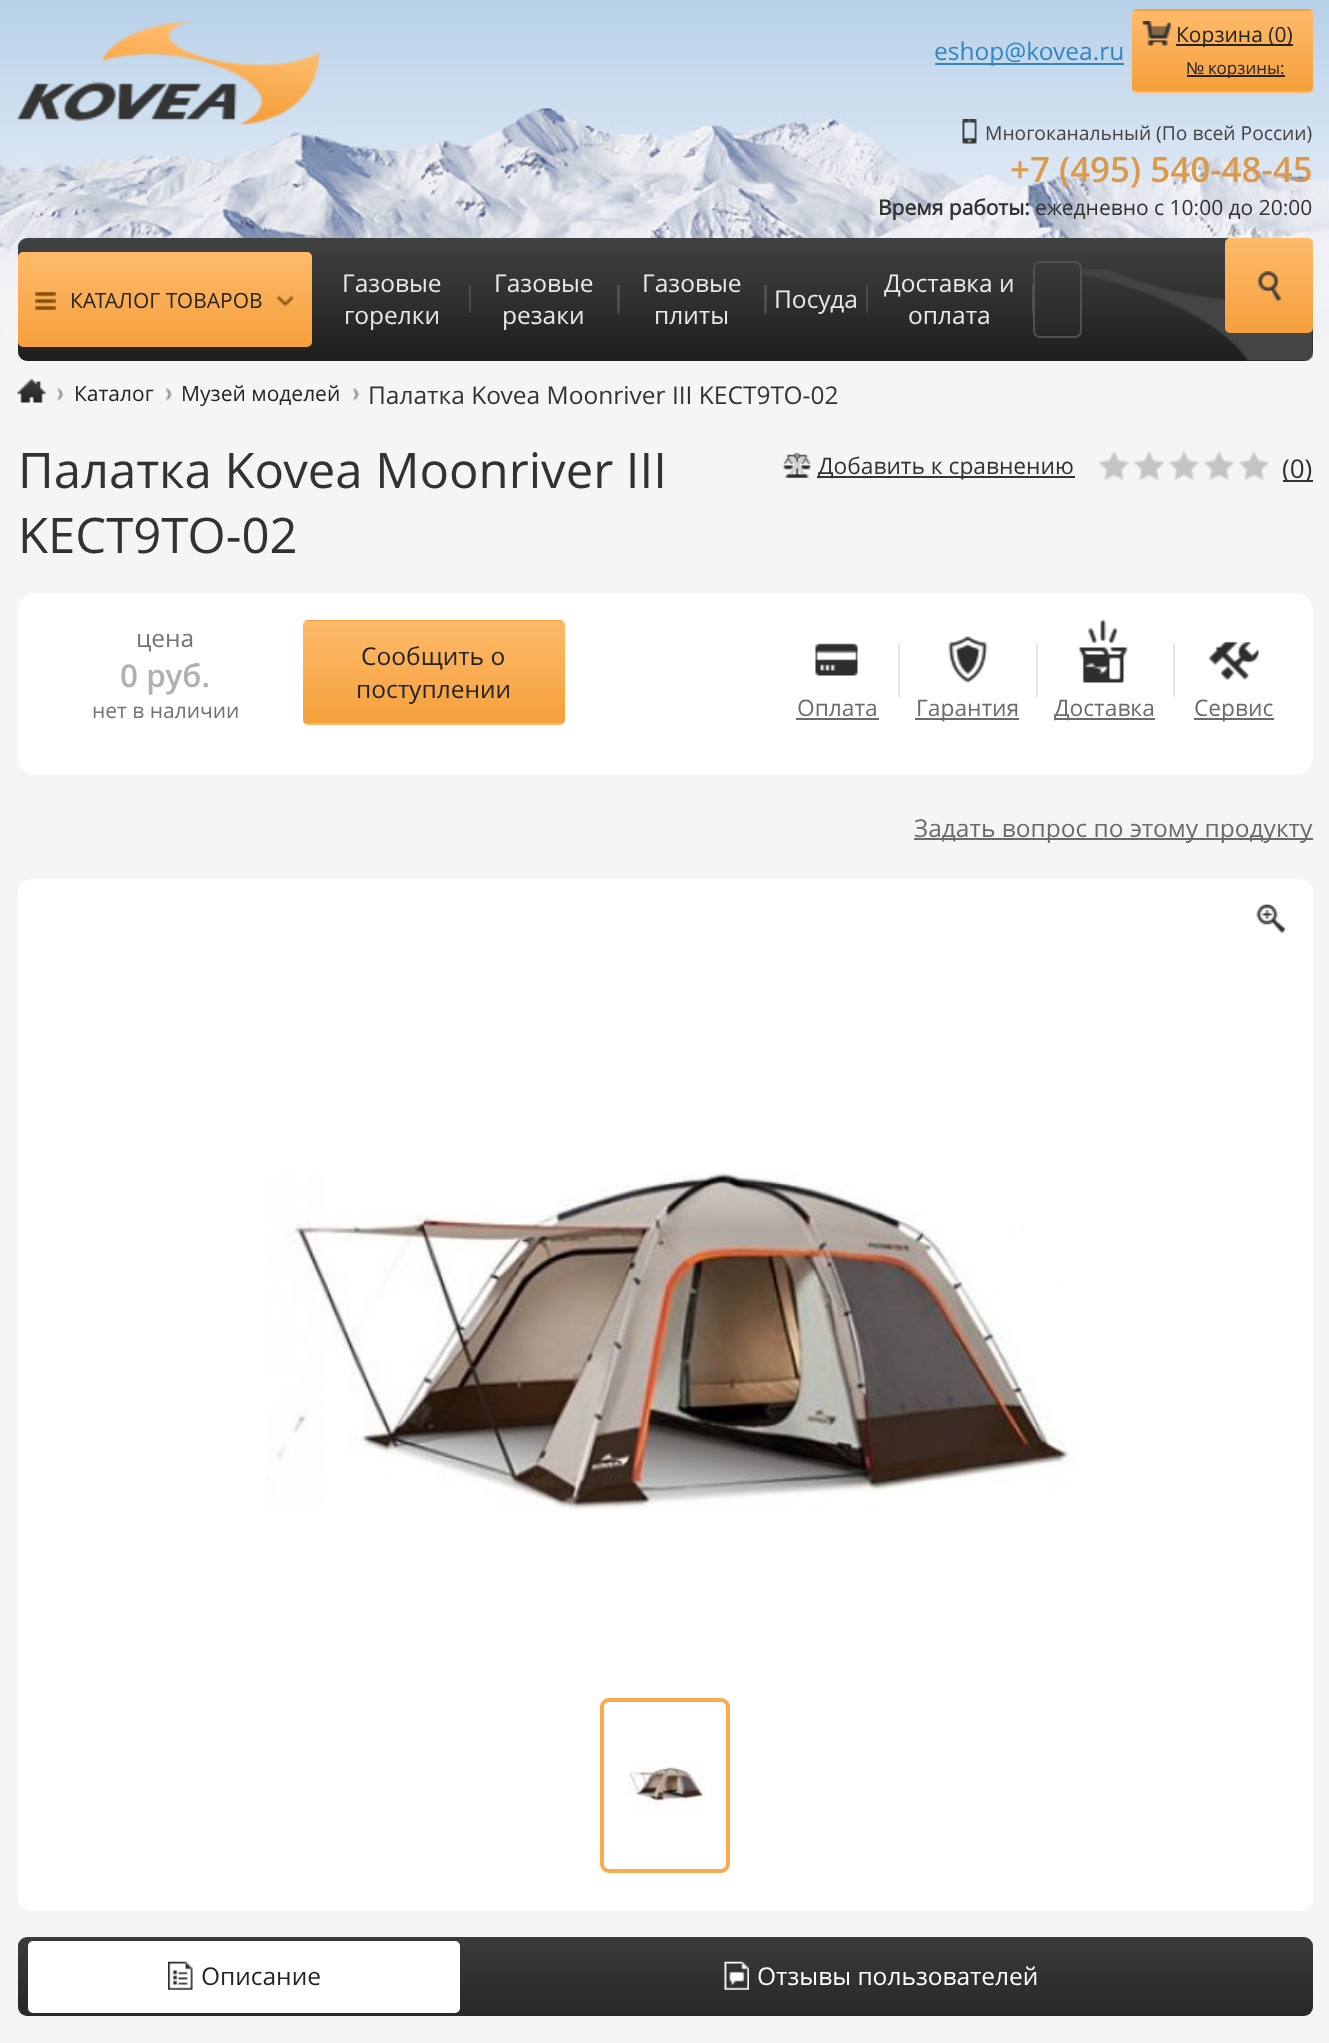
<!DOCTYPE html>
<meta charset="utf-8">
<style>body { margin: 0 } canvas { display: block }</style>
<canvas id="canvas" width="1329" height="2043"></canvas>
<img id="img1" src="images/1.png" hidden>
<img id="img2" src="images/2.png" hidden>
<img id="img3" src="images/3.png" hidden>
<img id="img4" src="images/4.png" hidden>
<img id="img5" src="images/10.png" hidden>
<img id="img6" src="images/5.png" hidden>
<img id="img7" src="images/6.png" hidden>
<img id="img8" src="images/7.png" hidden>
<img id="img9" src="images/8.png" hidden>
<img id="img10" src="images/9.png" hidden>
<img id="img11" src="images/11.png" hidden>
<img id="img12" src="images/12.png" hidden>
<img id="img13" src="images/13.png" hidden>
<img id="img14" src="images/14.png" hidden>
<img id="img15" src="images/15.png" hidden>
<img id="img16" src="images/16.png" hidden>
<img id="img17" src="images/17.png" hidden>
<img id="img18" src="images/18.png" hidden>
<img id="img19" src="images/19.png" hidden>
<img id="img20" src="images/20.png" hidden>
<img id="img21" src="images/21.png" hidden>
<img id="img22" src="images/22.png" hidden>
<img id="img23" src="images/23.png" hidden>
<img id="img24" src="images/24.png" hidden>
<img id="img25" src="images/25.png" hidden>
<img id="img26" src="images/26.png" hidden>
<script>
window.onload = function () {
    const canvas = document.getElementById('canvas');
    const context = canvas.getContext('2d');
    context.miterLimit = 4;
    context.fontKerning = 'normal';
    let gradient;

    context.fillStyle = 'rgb(245, 245, 245)';
    context.fillRect(0, 0, 1329, 2043);
    context.drawImage(document.getElementById('img1'), 0, 0, 1329, 341);
    context.drawImage(document.getElementById('img2'), 17, 21, 304, 104);
    context.fillStyle = 'rgb(48, 134, 193)';
    context.fillRect(935, 63, 189, 2);
    context.save();
    context.beginPath();
    context.roundRect(1132, 9, 181, 84, 5);
    context.clip();
    gradient = context.createLinearGradient(1222, -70, 1222, 11);
    gradient.addColorStop(0, 'rgb(254, 186, 106)');
    gradient.addColorStop(1, 'rgb(245, 160, 60)');
    context.fillStyle = gradient;
    context.fillRect(1132, 9, 181, 2);
    gradient = context.createLinearGradient(1222, 10, 1222, 91);
    gradient.addColorStop(0, 'rgb(254, 186, 106)');
    gradient.addColorStop(1, 'rgb(245, 160, 60)');
    context.fillStyle = gradient;
    context.fillRect(1132, 11, 181, 80);
    gradient = context.createLinearGradient(1222, 91, 1222, 172);
    gradient.addColorStop(0, 'rgb(254, 186, 106)');
    gradient.addColorStop(1, 'rgb(245, 160, 60)');
    context.fillStyle = gradient;
    context.fillRect(1132, 91, 181, 2);
    context.restore();
    context.drawImage(document.getElementById('img3'), 1142, 21, 29, 25);
    context.fillStyle = 'rgb(36, 36, 36)';
    context.fillRect(1176, 44, 117, 2);
    context.fillRect(1187, 75, 98, 2);
    context.drawImage(document.getElementById('img4'), 962, 119, 15, 25);
    gradient = context.createLinearGradient(665, 238, 665, 361);
    gradient.addColorStop(0, 'rgb(64, 65, 66)');
    gradient.addColorStop(1, 'rgb(31, 30, 29)');
    context.fillStyle = gradient;
    context.beginPath();
    context.roundRect(18, 238, 1295, 123, 9);
    context.fill();
    context.drawImage(document.getElementById('img5'), 1082, 269, 231, 92);
    gradient = context.createLinearGradient(1269, 238, 1269, 333);
    gradient.addColorStop(0, 'rgb(254, 186, 106)');
    gradient.addColorStop(1, 'rgb(245, 160, 60)');
    context.fillStyle = gradient;
    context.beginPath();
    context.roundRect(1225, 238, 88, 95, 5);
    context.fill();
    context.drawImage(document.getElementById('img6'), 1258, 271, 23, 30);
    gradient = context.createLinearGradient(165, 252, 165, 347);
    gradient.addColorStop(0, 'rgb(254, 186, 106)');
    gradient.addColorStop(1, 'rgb(245, 160, 60)');
    context.fillStyle = gradient;
    context.beginPath();
    context.roundRect(18, 252, 294, 95, 5);
    context.fill();
    context.drawImage(document.getElementById('img7'), 35, 292, 21, 18);
    context.drawImage(document.getElementById('img8'), 276, 295, 18, 12);
    context.drawImage(document.getElementById('img9'), 469, 285, 2, 29);
    context.fillStyle = 'rgba(248, 248, 248, 0.15)';
    context.fillRect(617, 285, 3, 29);
    context.fillRect(764, 285, 3, 29);
    context.drawImage(document.getElementById('img10'), 866, 285, 2, 29);
    context.fillRect(1032, 285, 1, 29);
    context.save();
    context.beginPath();
    context.roundRect(1033, 261, 49, 77, 7);
    context.clip();
    gradient = context.createLinearGradient(1057, 263, 1057, 336);
    gradient.addColorStop(0, 'rgb(58, 58, 58)');
    gradient.addColorStop(1, 'rgb(40, 40, 40)');
    context.fillStyle = gradient;
    context.fillRect(1033, 263, 49, 73);
    context.restore();
    context.beginPath();
    context.roundRect(1034, 262, 47, 75, 6);
    context.strokeStyle = 'rgb(80, 80, 80)';
    context.lineWidth = 2;
    context.stroke();
    context.drawImage(document.getElementById('img11'), 57, 388, 6, 13);
    context.drawImage(document.getElementById('img12'), 17, 378, 29, 25);
    context.drawImage(document.getElementById('img13'), 166, 388, 6, 13);
    context.drawImage(document.getElementById('img14'), 353, 388, 6, 13);
    context.drawImage(document.getElementById('img15'), 782, 453, 29, 25);
    context.fillStyle = 'rgb(53, 53, 53)';
    context.fillRect(817, 476, 258, 2);
    context.drawImage(document.getElementById('img16'), 1099, 451, 30, 29);
    context.drawImage(document.getElementById('img16'), 1134, 451, 30, 29);
    context.drawImage(document.getElementById('img16'), 1169, 451, 30, 29);
    context.drawImage(document.getElementById('img16'), 1204, 451, 30, 29);
    context.drawImage(document.getElementById('img17'), 1239, 451, 30, 29);
    context.fillRect(1283, 480, 30, 2);
    context.fillStyle = 'rgb(255, 255, 255)';
    context.beginPath();
    context.roundRect(18, 593, 1295, 182, 18);
    context.fill();
    context.save();
    context.beginPath();
    context.roundRect(303, 620, 262, 105, 5);
    context.clip();
    gradient = context.createLinearGradient(434, 520, 434, 621);
    gradient.addColorStop(0, 'rgb(254, 186, 106)');
    gradient.addColorStop(1, 'rgb(245, 160, 60)');
    context.fillStyle = gradient;
    context.fillRect(303, 620, 262, 1);
    gradient = context.createLinearGradient(434, 621, 434, 723);
    gradient.addColorStop(0, 'rgb(254, 186, 106)');
    gradient.addColorStop(1, 'rgb(245, 160, 60)');
    context.fillStyle = gradient;
    context.fillRect(303, 621, 262, 102);
    gradient = context.createLinearGradient(434, 723, 434, 824);
    gradient.addColorStop(0, 'rgb(254, 186, 106)');
    gradient.addColorStop(1, 'rgb(245, 160, 60)');
    context.fillStyle = gradient;
    context.fillRect(303, 723, 262, 2);
    context.restore();
    context.drawImage(document.getElementById('img18'), 815, 643, 43, 33);
    context.fillStyle = 'rgb(107, 107, 107)';
    context.fillRect(796, 718, 83, 2);
    context.fillStyle = 'rgb(229, 229, 229)';
    context.fillRect(898, 644, 2, 53);
    context.drawImage(document.getElementById('img19'), 948, 635, 40, 48);
    context.fillStyle = 'rgb(107, 107, 107)';
    context.fillRect(915, 718, 104, 2);
    context.fillStyle = 'rgb(229, 229, 229)';
    context.fillRect(1036, 644, 2, 53);
    context.drawImage(document.getElementById('img20'), 1078, 619, 50, 64);
    context.fillStyle = 'rgb(107, 107, 107)';
    context.fillRect(1054, 718, 101, 2);
    context.fillStyle = 'rgb(229, 229, 229)';
    context.fillRect(1173, 644, 2, 53);
    context.drawImage(document.getElementById('img21'), 1208, 641, 52, 39);
    context.fillStyle = 'rgb(107, 107, 107)';
    context.fillRect(1194, 718, 80, 2);
    context.fillRect(914, 838, 399, 2);
    context.fillStyle = 'rgb(255, 255, 255)';
    context.beginPath();
    context.roundRect(18, 879, 1295, 1032, 14);
    context.fill();
    context.drawImage(document.getElementById('img22'), 1256, 904, 31, 29);
    context.drawImage(document.getElementById('img23'), 265, 1171, 813, 339);
    context.fillStyle = 'rgba(255, 255, 255, 0.8)';
    context.fillRect(18, 1900, 1295, 4);
    context.beginPath();
    context.roundRect(602, 1700, 126, 171, 7);
    context.strokeStyle = 'rgb(249, 170, 79)';
    context.lineWidth = 4;
    context.stroke();
    context.drawImage(document.getElementById('img24'), 629, 1763, 77, 50);
    gradient = context.createLinearGradient(665, 1937, 665, 2016);
    gradient.addColorStop(0, 'rgb(58, 58, 58)');
    gradient.addColorStop(1, 'rgb(40, 40, 40)');
    context.fillStyle = gradient;
    context.beginPath();
    context.roundRect(18, 1937, 1295, 79, 9);
    context.fill();
    context.fillStyle = 'rgb(255, 255, 255)';
    context.beginPath();
    context.roundRect(28, 1941, 432, 72, 5);
    context.fill();
    context.drawImage(document.getElementById('img25'), 168, 1961, 25, 29);
    context.drawImage(document.getElementById('img26'), 724, 1961, 25, 29);
    context.font = '24.5px Open Sans';
    context.fillStyle = 'rgb(48, 134, 193)';
    context.fillText('eshop@kovea.ru', 934, 60);
    context.font = '21px Open Sans';
    context.fillStyle = 'rgb(36, 36, 36)';
    context.fillText('Корзина (0)', 1176, 42);
    context.font = '17px Liberation Sans';
    context.fillText('№', 1186, 74);
    context.font = '17px Open Sans';
    context.fillText('корзины:', 1208, 74);
    context.font = '19.25px Open Sans';
    context.fillStyle = 'rgb(66, 66, 66)';
    context.fillText('Многоканальный (По всей России)', 985, 140);
    context.font = '600 35px Open Sans';
    context.fillStyle = 'rgb(219, 153, 76)';
    context.fillText('+7 (495) 540-48-45', 1010, 182);
    context.font = 'bold 21px Open Sans';
    context.fillStyle = 'rgb(50, 50, 50)';
    context.fillText('Время работы:', 878, 215);
    context.font = '21px Open Sans';
    context.fillText('ежедневно с 10:00 до 20:00', 1035, 215);
    context.fillStyle = 'rgb(36, 36, 36)';
    context.fillText('КАТАЛОГ ТОВАРОВ', 70, 308);
    context.font = '24.5px Open Sans';
    context.fillStyle = 'rgb(233, 233, 233)';
    context.fillText('Газовые', 342, 292);
    context.fillText('горелки', 344, 324);
    context.fillText('Газовые', 494, 292);
    context.fillText('резаки', 502, 324);
    context.fillText('Газовые', 642, 292);
    context.fillText('плиты', 654, 324);
    context.fillText('Посуда', 774, 308);
    context.fillText('Доставка и', 884, 292);
    context.fillText('оплата', 908, 324);
    context.font = '21px Open Sans';
    context.fillStyle = 'rgb(36, 36, 36)';
    context.fillText('Каталог', 74, 401);
    context.fillText('Музей моделей', 181, 401);
    context.font = '24.5px Open Sans';
    context.fillStyle = 'rgb(50, 50, 50)';
    context.fillText('Палатка Kovea Moonriver III KECT9TO-02', 368, 404);
    context.font = '49px Open Sans';
    context.fillText('Палатка Kovea Moonriver III', 18, 488);
    context.fillText('KECT9TO-02', 18, 553);
    context.font = 'bold 24.5px "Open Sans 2"';
    context.fillStyle = 'rgb(210, 210, 210)';
    context.fillText('X', 789, 474);
    context.font = '22.75px Open Sans';
    context.fillStyle = 'rgb(50, 50, 50)';
    context.fillText('Добавить к сравнению', 818, 474);
    context.font = '26px Open Sans';
    context.fillText('(0)', 1282, 478);
    context.font = '24.5px Open Sans';
    context.fillStyle = 'rgb(116, 116, 116)';
    context.fillText('цена', 136, 647);
    context.font = '600 31.5px Open Sans';
    context.fillStyle = 'rgb(176, 176, 176)';
    context.fillText('0 руб.', 120, 687);
    context.font = '21px Open Sans';
    context.fillStyle = 'rgb(116, 116, 116)';
    context.fillText('нет в наличии', 92, 718);
    context.font = '24.5px Open Sans';
    context.fillStyle = 'rgb(36, 36, 36)';
    context.fillText('Сообщить о', 361, 665);
    context.fillText('поступлении', 356, 698);
    context.font = '22.75px Open Sans';
    context.fillStyle = 'rgb(107, 107, 107)';
    context.fillText('Оплата', 797, 716);
    context.fillText('Гарантия', 916, 716);
    context.fillText('Доставка', 1054, 716);
    context.fillText('Сервис', 1194, 716);
    context.font = '24.5px Open Sans';
    context.fillText('Задать вопрос по этому продукту', 914, 837);
    context.fillStyle = 'rgb(36, 36, 36)';
    context.fillText('Описание', 201, 1985);
    context.fillStyle = 'rgb(255, 255, 255)';
    context.fillText('Отзывы пользователей', 757, 1985);
};
</script>
